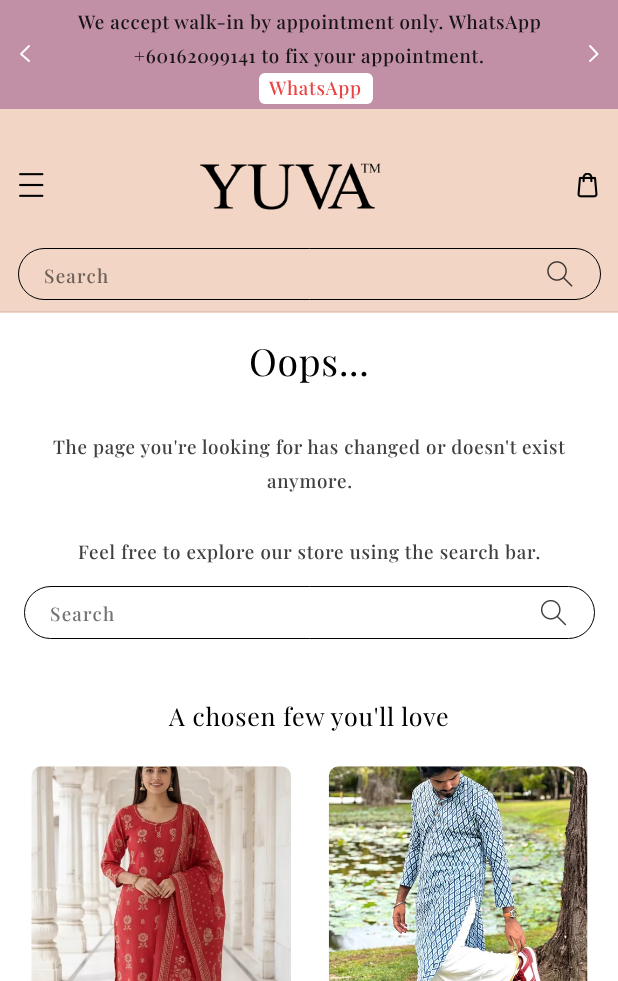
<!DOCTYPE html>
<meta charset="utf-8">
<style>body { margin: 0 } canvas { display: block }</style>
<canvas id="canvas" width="618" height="981"></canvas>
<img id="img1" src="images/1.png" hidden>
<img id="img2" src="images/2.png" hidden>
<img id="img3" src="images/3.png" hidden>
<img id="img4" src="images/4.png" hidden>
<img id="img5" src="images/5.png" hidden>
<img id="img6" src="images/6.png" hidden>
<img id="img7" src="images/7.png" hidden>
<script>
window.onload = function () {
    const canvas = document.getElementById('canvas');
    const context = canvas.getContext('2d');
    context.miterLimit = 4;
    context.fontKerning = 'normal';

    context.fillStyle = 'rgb(255, 255, 255)';
    context.fillRect(0, 0, 618, 981);
    context.fillStyle = 'rgb(193, 144, 167)';
    context.fillRect(0, 0, 618, 109);
    context.beginPath();
    context.moveTo(29, 46);
    context.lineTo(21, 54);
    context.lineTo(29, 61);
    context.strokeStyle = 'rgb(255, 255, 255)';
    context.lineWidth = 1.9;
    context.lineCap = 'round';
    context.lineJoin = 'round';
    context.stroke();
    context.fillStyle = 'rgb(255, 255, 255)';
    context.beginPath();
    context.roundRect(259, 73, 114, 31, 6);
    context.fill();
    context.beginPath();
    context.moveTo(590, 46);
    context.lineTo(597.5, 54);
    context.lineTo(590, 61);
    context.stroke();
    context.fillStyle = 'rgb(242, 213, 197)';
    context.fillRect(0, 109, 618, 204);
    context.fillStyle = 'rgb(223, 196, 181)';
    context.fillRect(0, 311, 618, 1);
    context.drawImage(document.getElementById('img1'), 19, 173, 25, 24);
    context.drawImage(document.getElementById('img2'), 200, 163, 181, 47);
    context.drawImage(document.getElementById('img3'), 577, 173, 21, 25);
    context.beginPath();
    context.roundRect(18.5, 248.5, 582, 51, 25.5);
    context.strokeStyle = 'rgb(0, 0, 0)';
    context.lineWidth = 1;
    context.lineJoin = 'miter';
    context.stroke();
    context.drawImage(document.getElementById('img4'), 547, 261, 26, 26);
    context.beginPath();
    context.roundRect(24.5, 586.5, 570, 52, 26);
    context.stroke();
    context.drawImage(document.getElementById('img5'), 541, 599, 26, 27);
    context.drawImage(document.getElementById('img6'), 31, 766, 260, 215);
    context.drawImage(document.getElementById('img7'), 328, 766, 260, 215);
    context.letterSpacing = '0.75px';
    context.font = '500 18.75px Playfair Display';
    context.fillStyle = 'rgb(23, 20, 20)';
    context.fillText('We accept walk-in by appointment only. WhatsApp', 78, 29);
    context.fillText('+60162099141 to fix your appointment.', 134, 63);
    context.fillStyle = 'rgb(233, 69, 69)';
    context.fillText('WhatsApp', 269, 95);
    context.letterSpacing = '1.25px';
    context.fillStyle = 'rgb(109, 96, 89)';
    context.fillText('Search', 44, 283);
    context.letterSpacing = '0.75px';
    context.font = '37.5px Playfair Display';
    context.fillStyle = 'rgb(0, 0, 0)';
    context.fillText('Oops...', 249, 376);
    context.font = '500 18.75px Playfair Display';
    context.fillStyle = 'rgb(64, 64, 64)';
    context.fillText('The page you\'re looking for has changed or doesn\'t exist', 53, 454);
    context.fillText('anymore.', 267, 488);
    context.fillText('Feel free to explore our store using the search bar.', 78, 559);
    context.letterSpacing = '1.25px';
    context.fillStyle = 'rgb(115, 115, 115)';
    context.fillText('Search', 50, 621);
    context.letterSpacing = '0.75px';
    context.font = '25px Playfair Display';
    context.fillStyle = 'rgb(0, 0, 0)';
    context.fillText('A chosen few you\'ll love', 169, 726);
};
</script>
